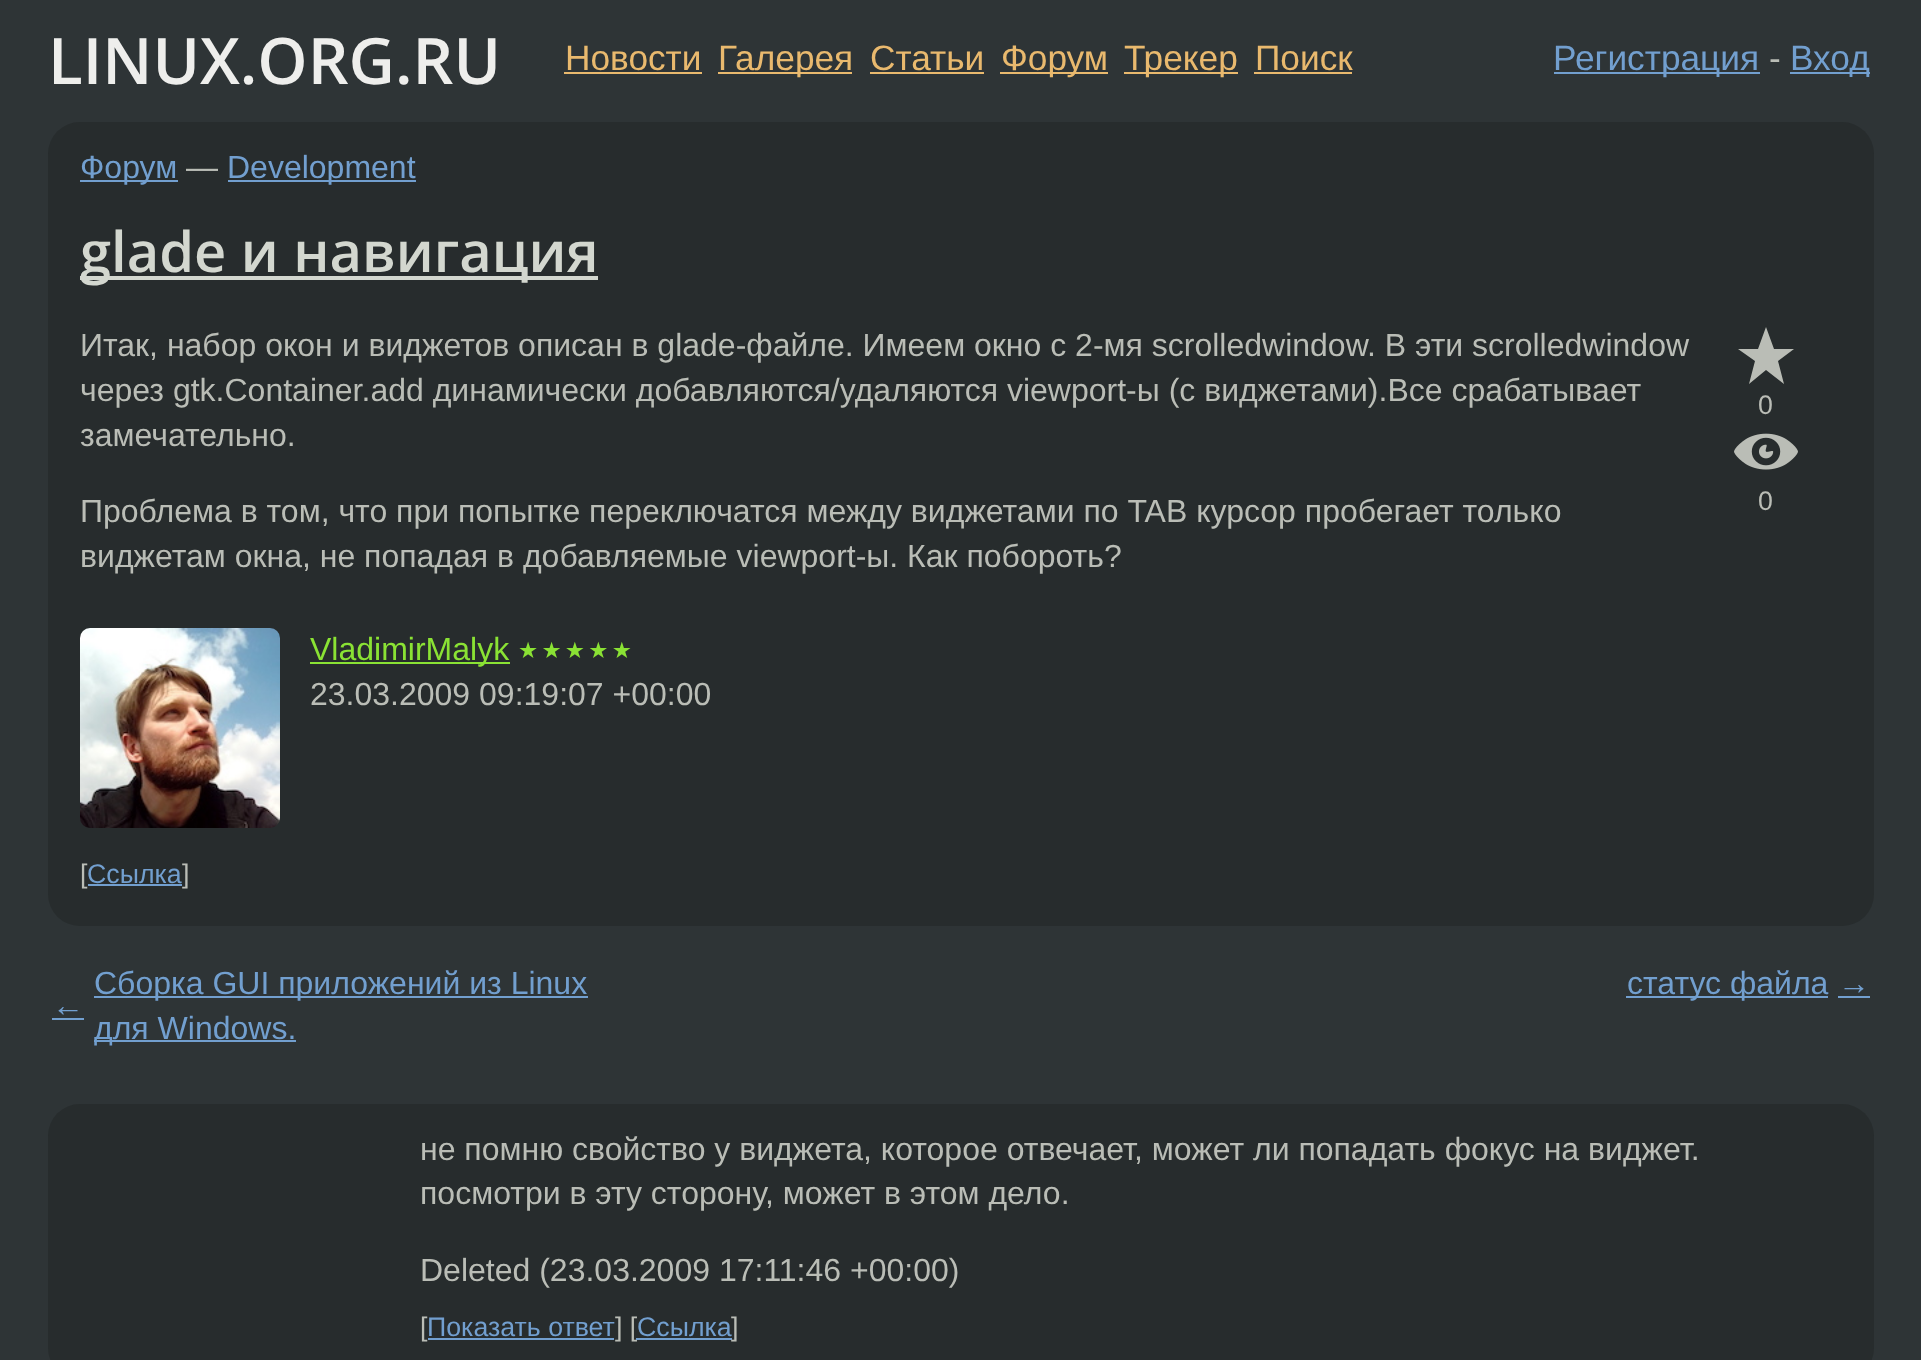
<!DOCTYPE html>
<meta charset="utf-8">
<style>body { margin: 0 } canvas { display: block }</style>
<canvas id="canvas" width="1921" height="1360"></canvas>
<img id="img1" src="images/1.png" hidden>
<img id="img2" src="images/2.png" hidden>
<script>
window.onload = function () {
    const canvas = document.getElementById('canvas');
    const context = canvas.getContext('2d');
    context.miterLimit = 4;
    context.fontKerning = 'normal';

    context.fillStyle = 'rgb(46, 52, 54)';
    context.fillRect(0, 0, 1921, 1360);
    context.fillStyle = 'rgb(233, 185, 110)';
    context.fillRect(564, 72, 138, 2);
    context.fillRect(718, 72, 134, 2);
    context.fillRect(870, 72, 114, 2);
    context.fillRect(1000, 72, 108, 2);
    context.fillRect(1124, 72, 114, 2);
    context.fillRect(1254, 72, 98, 2);
    context.fillStyle = 'rgb(114, 159, 207)';
    context.fillRect(1554, 72, 206, 2);
    context.fillRect(1790, 72, 80, 2);
    context.fillStyle = 'rgb(39, 44, 45)';
    context.beginPath();
    context.roundRect(48, 122, 1826, 804, 32);
    context.fill();
    context.fillStyle = 'rgb(114, 159, 207)';
    context.fillRect(80, 180, 98, 2);
    context.fillRect(228, 180, 188, 2);
    context.fillStyle = 'rgb(211, 215, 207)';
    context.fillRect(80, 276, 518, 4);
    context.fillStyle = 'rgb(186, 189, 182)';
    context.beginPath();
    context.moveTo(1766, 327);
    context.lineTo(1774, 349);
    context.lineTo(1794, 349);
    context.lineTo(1778, 361);
    context.lineTo(1784, 384);
    context.lineTo(1766, 370);
    context.lineTo(1749, 384);
    context.lineTo(1755, 361);
    context.lineTo(1738, 349);
    context.lineTo(1758, 349);
    context.closePath();
    context.fill();
    context.drawImage(document.getElementById('img1'), 1734, 433, 64, 37);
    context.drawImage(document.getElementById('img2'), 80, 628, 200, 200);
    context.fillStyle = 'rgb(138, 226, 52)';
    context.fillRect(310, 662, 200, 2);
    context.fillStyle = 'rgb(114, 159, 207)';
    context.fillRect(88, 884, 94, 2);
    context.fillRect(52, 1018, 32, 2);
    context.fillRect(94, 996, 494, 2);
    context.fillRect(94, 1040, 202, 2);
    context.fillRect(1626, 996, 202, 2);
    context.fillRect(1838, 996, 32, 2);
    context.fillStyle = 'rgb(39, 44, 45)';
    context.beginPath();
    context.roundRect(48, 1104, 1826, 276, 32);
    context.fill();
    context.fillStyle = 'rgb(114, 159, 207)';
    context.fillRect(428, 1338, 186, 2);
    context.font = '600 64px Open Sans';
    context.fillStyle = 'rgb(238, 238, 236)';
    context.fillText('LINUX.ORG.RU', 48, 84);
    context.font = '35.25px Liberation Sans';
    context.fillStyle = 'rgb(233, 185, 110)';
    context.fillText('Новости', 565, 70);
    context.fillText('Галерея', 718, 70);
    context.fillText('Статьи', 870, 70);
    context.fillText('Форум', 1001, 70);
    context.fillText('Трекер', 1124, 70);
    context.fillText('Поиск', 1255, 70);
    context.fillStyle = 'rgb(114, 159, 207)';
    context.fillText('Регистрация', 1553, 70);
    context.fillStyle = 'rgb(186, 189, 182)';
    context.fillText('-', 1769, 70);
    context.fillStyle = 'rgb(114, 159, 207)';
    context.fillText('Вход', 1790, 70);
    context.font = '32px Liberation Sans';
    context.fillText('Форум', 80, 178);
    context.fillStyle = 'rgb(186, 189, 182)';
    context.fillText('—', 186, 178);
    context.fillStyle = 'rgb(114, 159, 207)';
    context.fillText('Development', 227, 178);
    context.font = '600 56px Open Sans';
    context.fillStyle = 'rgb(211, 215, 207)';
    context.fillText('glade и навигация', 80, 272);
    context.font = '32px Liberation Sans';
    context.fillStyle = 'rgb(186, 189, 182)';
    context.fillText('Итак, набор окон и виджетов описан в glade-файле. Имеем окно с 2-мя scrolledwindow. В эти scrolledwindow', 80, 356);
    context.fillText('через gtk.Container.add динамически добавляются/удаляются viewport-ы (с виджетами).Все срабатывает', 80, 401);
    context.fillText('замечательно.', 80, 446);
    context.fillText('Проблема в том, что при попытке переключатся между виджетами по TAB курсор пробегает только', 80, 522);
    context.fillText('виджетам окна, не попадая в добавляемые viewport-ы. Как побороть?', 80, 567);
    context.font = '26.75px Liberation Sans';
    context.fillText('0', 1758, 414);
    context.fillText('0', 1758, 510);
    context.font = '32px Liberation Sans';
    context.fillStyle = 'rgb(138, 226, 52)';
    context.fillText('VladimirMalyk', 310, 660);
    context.letterSpacing = '3.25px';
    context.font = '22.5px DejaVu Sans';
    context.fillText('★★★★★', 518, 658);
    context.letterSpacing = '0px';
    context.font = '32px Liberation Sans';
    context.fillStyle = 'rgb(186, 189, 182)';
    context.fillText('23.03.2009 09:19:07 +00:00', 310, 705);
    context.font = '26.75px Liberation Sans';
    context.fillText('[', 80, 883);
    context.fillStyle = 'rgb(114, 159, 207)';
    context.fillText('Ссылка', 87, 883);
    context.fillStyle = 'rgb(186, 189, 182)';
    context.fillText(']', 182, 883);
    context.font = '32px Liberation Sans';
    context.fillStyle = 'rgb(114, 159, 207)';
    context.fillText('←', 52, 1016);
    context.fillText('Сборка GUI приложений из Linux', 94, 994);
    context.fillText('для Windows.', 94, 1039);
    context.fillText('статус файла', 1627, 994);
    context.fillText('→', 1838, 994);
    context.fillStyle = 'rgb(186, 189, 182)';
    context.fillText('не помню свойство у виджета, которое отвечает, может ли попадать фокус на виджет.', 420, 1160);
    context.fillText('посмотри в эту сторону, может в этом дело.', 420, 1204);
    context.fillText('Deleted (23.03.2009 17:11:46 +00:00)', 420, 1281);
    context.font = '26.75px Liberation Sans';
    context.fillText('[', 420, 1336);
    context.fillStyle = 'rgb(114, 159, 207)';
    context.fillText('Показать ответ', 427, 1336);
    context.fillStyle = 'rgb(186, 189, 182)';
    context.fillText('] [', 615, 1336);
    context.fillStyle = 'rgb(114, 159, 207)';
    context.fillRect(636, 1338, 96, 2);
    context.fillText('Ссылка', 637, 1336);
    context.fillStyle = 'rgb(186, 189, 182)';
    context.fillText(']', 731, 1336);
};
</script>
